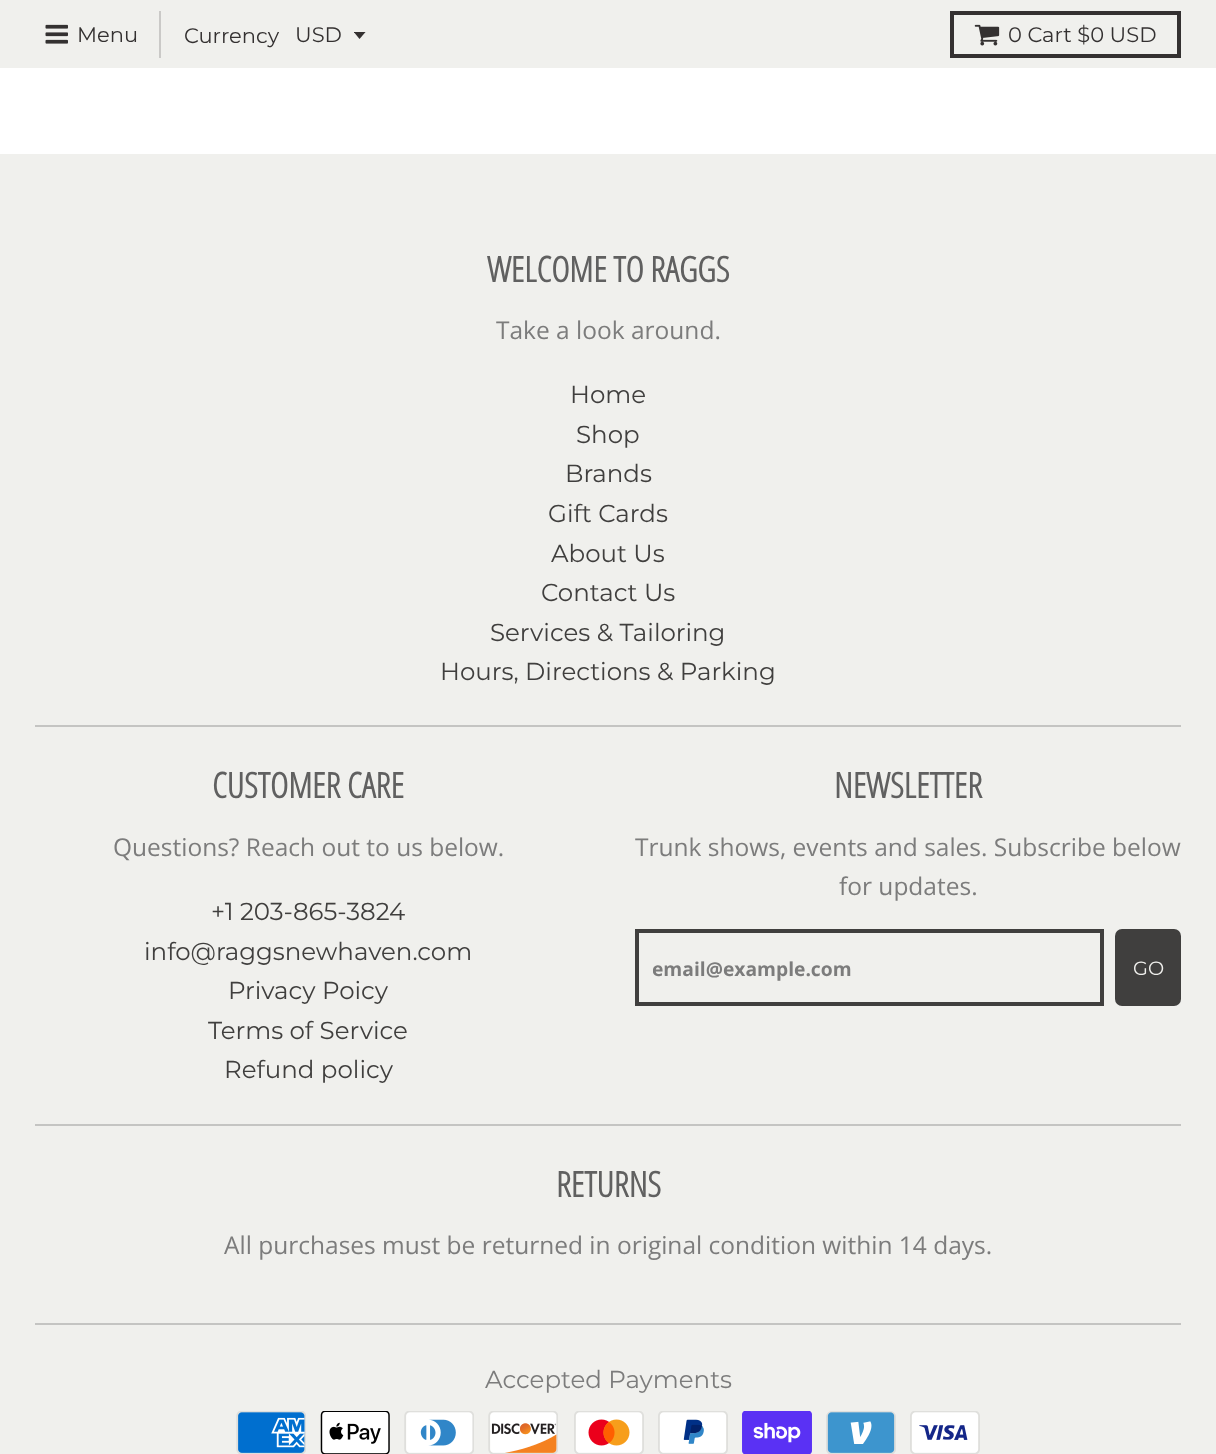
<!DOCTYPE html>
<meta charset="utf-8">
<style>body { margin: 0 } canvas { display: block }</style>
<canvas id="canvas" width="1216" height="1454"></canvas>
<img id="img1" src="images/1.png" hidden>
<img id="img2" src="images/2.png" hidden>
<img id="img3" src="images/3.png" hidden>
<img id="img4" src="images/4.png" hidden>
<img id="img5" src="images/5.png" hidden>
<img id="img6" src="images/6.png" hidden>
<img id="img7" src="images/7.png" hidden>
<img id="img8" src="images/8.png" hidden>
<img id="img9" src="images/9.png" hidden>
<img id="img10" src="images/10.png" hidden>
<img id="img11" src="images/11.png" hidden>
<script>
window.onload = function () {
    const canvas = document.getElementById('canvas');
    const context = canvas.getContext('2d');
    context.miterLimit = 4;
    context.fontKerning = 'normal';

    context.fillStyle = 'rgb(255, 255, 255)';
    context.fillRect(0, 0, 1216, 1454);
    context.fillStyle = 'rgb(240, 240, 237)';
    context.fillRect(0, 0, 1216, 68);
    context.fillStyle = 'rgb(202, 201, 199)';
    context.fillRect(159, 11, 2, 47);
    context.drawImage(document.getElementById('img1'), 45, 24, 23, 20);
    context.save();
    context.beginPath();
    context.rect(354, 32, 14, 8);
    context.clip();
    context.fillStyle = 'rgb(52, 49, 49)';
    context.beginPath();
    context.moveTo(353.5, 31.5);
    context.lineTo(359.5, 39);
    context.lineTo(366, 31.5);
    context.closePath();
    context.fill();
    context.restore();
    context.strokeStyle = 'rgb(52, 49, 49)';
    context.lineWidth = 4;
    context.strokeRect(952, 13, 227, 43);
    context.drawImage(document.getElementById('img2'), 974, 24, 26, 22);
    context.fillStyle = 'rgb(240, 240, 237)';
    context.fillRect(0, 154, 1216, 1300);
    context.fillStyle = 'rgb(196, 196, 194)';
    context.fillRect(35, 725, 1146, 2);
    context.strokeStyle = 'rgb(64, 63, 62)';
    context.strokeRect(637, 931, 465, 73);
    context.fillStyle = 'rgb(64, 63, 62)';
    context.beginPath();
    context.roundRect(1115, 929, 66, 77, 7);
    context.fill();
    context.fillStyle = 'rgb(196, 196, 194)';
    context.fillRect(35, 1124, 1146, 2);
    context.fillRect(35, 1323, 1146, 2);
    context.drawImage(document.getElementById('img3'), 236, 1411, 70, 43);
    context.drawImage(document.getElementById('img4'), 320, 1411, 70, 43);
    context.drawImage(document.getElementById('img5'), 404, 1411, 70, 43);
    context.drawImage(document.getElementById('img6'), 488, 1411, 70, 43);
    context.drawImage(document.getElementById('img7'), 574, 1411, 70, 43);
    context.drawImage(document.getElementById('img8'), 658, 1411, 70, 43);
    context.drawImage(document.getElementById('img9'), 742, 1411, 70, 43);
    context.drawImage(document.getElementById('img10'), 826, 1411, 70, 43);
    context.drawImage(document.getElementById('img11'), 910, 1411, 70, 43);
    context.font = '21px Montserrat';
    context.fillStyle = 'rgb(52, 49, 49)';
    context.fillText('Menu', 77, 42);
    context.fillText('Currency', 184, 43);
    context.fillText('USD', 295, 42);
    context.fillText('0 Cart $0 USD', 1008, 42);
    context.font = 'bold 35px Open Sans Condensed';
    context.fillStyle = 'rgb(96, 96, 96)';
    context.fillText('WELCOME TO RAGGS', 487, 282);
    context.font = '24.5px Open Sans';
    context.fillStyle = 'rgb(124, 124, 124)';
    context.fillText('Take a look around.', 496, 339);
    context.font = '24.5px Montserrat';
    context.fillStyle = 'rgb(64, 63, 62)';
    context.fillText('Home', 570, 403);
    context.fillText('Shop', 576, 443);
    context.fillText('Brands', 565, 482);
    context.fillText('Gift Cards', 548, 522);
    context.fillText('About Us', 551, 562);
    context.fillText('Contact Us', 541, 601);
    context.fillText('Services & Tailoring', 490, 641);
    context.fillText('Hours, Directions & Parking', 440, 680);
    context.font = 'bold 35px Open Sans Condensed';
    context.fillStyle = 'rgb(96, 96, 96)';
    context.fillText('CUSTOMER CARE', 212, 798);
    context.font = '24.5px Open Sans';
    context.fillStyle = 'rgb(124, 124, 124)';
    context.fillText('Questions? Reach out to us below.', 113, 856);
    context.font = '24.5px Montserrat';
    context.fillStyle = 'rgb(64, 63, 62)';
    context.fillText('+1 203-865-3824', 211, 920);
    context.fillText('info@raggsnewhaven.com', 144, 960);
    context.fillText('Privacy Poicy', 228, 999);
    context.fillText('Terms of Service', 208, 1039);
    context.fillText('Refund policy', 224, 1078);
    context.font = 'bold 35px Open Sans Condensed';
    context.fillStyle = 'rgb(96, 96, 96)';
    context.fillText('NEWSLETTER', 834, 798);
    context.font = '24.5px Open Sans';
    context.fillStyle = 'rgb(124, 124, 124)';
    context.fillText('Trunk shows, events and sales. Subscribe below', 635, 856);
    context.fillText('for updates.', 839, 895);
    context.save();
    context.beginPath();
    context.rect(653, 956, 434, 26);
    context.clip();
    context.font = 'bold 19.25px Open Sans';
    context.fillText('email@example.com', 652, 976);
    context.restore();
    context.font = '19.25px Montserrat';
    context.fillStyle = 'rgb(240, 240, 237)';
    context.fillText('GO', 1133, 975);
    context.font = 'bold 35px Open Sans Condensed';
    context.fillStyle = 'rgb(96, 96, 96)';
    context.fillText('RETURNS', 556, 1197);
    context.font = '24.5px Open Sans';
    context.fillStyle = 'rgb(124, 124, 124)';
    context.fillText('All purchases must be returned in original condition within 14 days.', 224, 1254);
    context.font = '24.5px Montserrat';
    context.fillText('Accepted Payments', 485, 1388);
};
</script>
